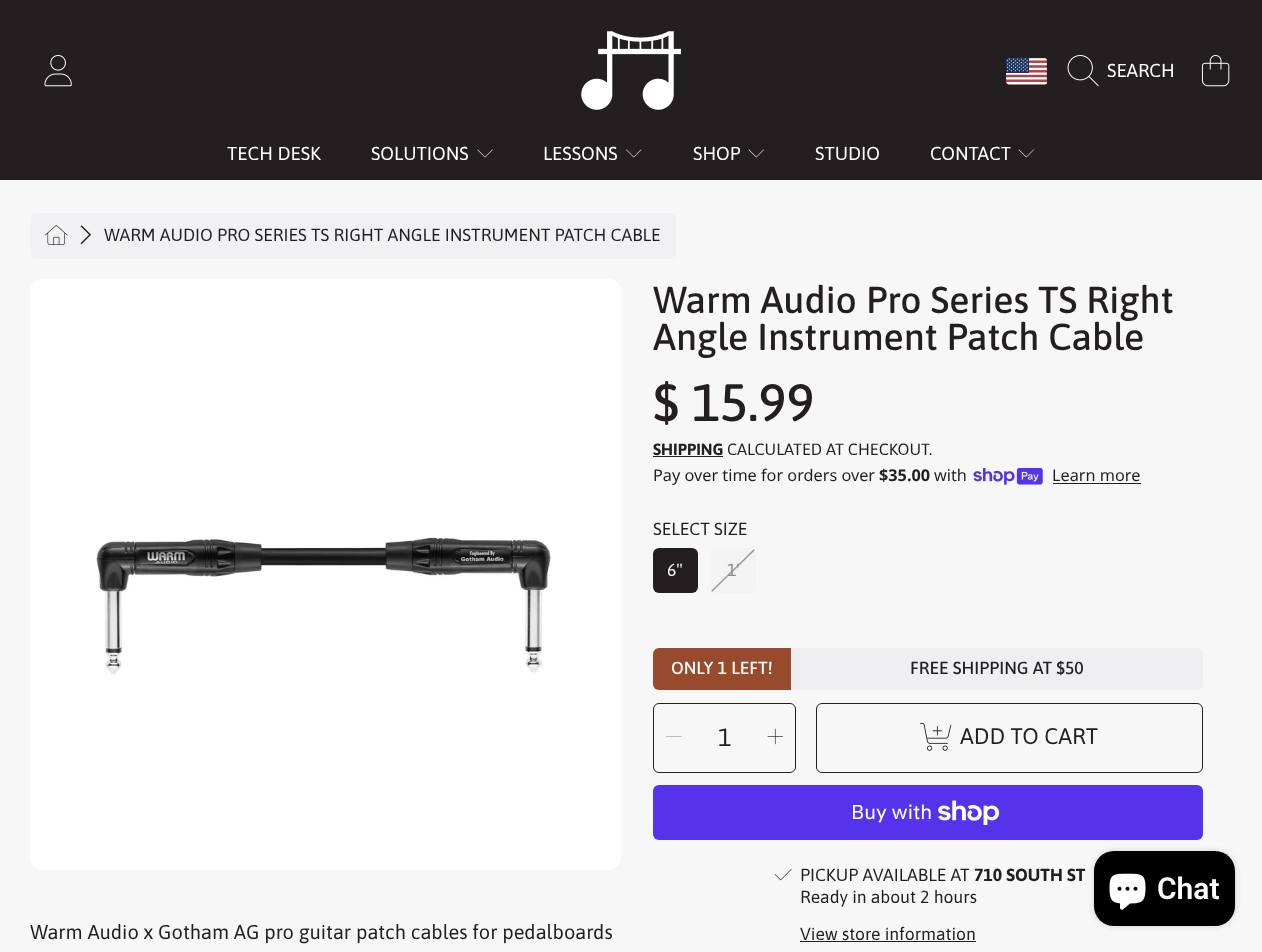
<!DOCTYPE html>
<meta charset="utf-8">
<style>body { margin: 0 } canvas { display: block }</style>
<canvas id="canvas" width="1262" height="952"></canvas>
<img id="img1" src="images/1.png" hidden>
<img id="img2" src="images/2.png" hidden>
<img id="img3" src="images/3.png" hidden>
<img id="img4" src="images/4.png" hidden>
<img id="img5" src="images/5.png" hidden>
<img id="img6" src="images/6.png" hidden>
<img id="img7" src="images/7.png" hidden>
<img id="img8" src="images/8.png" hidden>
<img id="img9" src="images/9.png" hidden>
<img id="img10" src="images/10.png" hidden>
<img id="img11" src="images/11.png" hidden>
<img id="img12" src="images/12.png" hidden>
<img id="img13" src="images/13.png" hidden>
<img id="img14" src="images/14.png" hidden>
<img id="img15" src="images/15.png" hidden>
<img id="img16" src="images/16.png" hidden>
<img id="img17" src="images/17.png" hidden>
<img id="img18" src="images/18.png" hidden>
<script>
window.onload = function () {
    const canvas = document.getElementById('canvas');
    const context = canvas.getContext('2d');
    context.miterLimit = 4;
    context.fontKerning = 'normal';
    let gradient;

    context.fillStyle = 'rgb(247, 247, 247)';
    context.fillRect(0, 0, 1262, 952);
    context.fillStyle = 'rgb(35, 31, 32)';
    context.fillRect(0, 0, 1262, 180);
    context.drawImage(document.getElementById('img1'), 44, 55, 28, 32);
    context.drawImage(document.getElementById('img2'), 581, 31, 100, 79);
    context.drawImage(document.getElementById('img3'), 1006, 58, 41, 27);
    context.drawImage(document.getElementById('img4'), 1067, 55, 32, 32);
    context.drawImage(document.getElementById('img5'), 1201, 55, 29, 32);
    context.drawImage(document.getElementById('img6'), 477, 149, 16, 9);
    context.drawImage(document.getElementById('img7'), 626, 149, 16, 9);
    context.drawImage(document.getElementById('img8'), 748, 149, 16, 9);
    context.drawImage(document.getElementById('img8'), 1018, 149, 16, 9);
    context.fillStyle = 'rgb(241, 241, 243)';
    context.beginPath();
    context.roundRect(30, 213, 646, 46, 6);
    context.fill();
    context.drawImage(document.getElementById('img9'), 45, 225, 23, 20);
    context.drawImage(document.getElementById('img10'), 80, 225, 11, 20);
    context.drawImage(document.getElementById('img11'), 30, 279, 591, 591);
    context.fillStyle = 'rgb(35, 31, 32)';
    context.fillRect(653, 456, 70, 1);
    context.drawImage(document.getElementById('img12'), 973, 468, 70, 17);
    context.fillRect(1053, 483, 88, 1);
    context.beginPath();
    context.roundRect(653, 548, 45, 45, 6);
    context.fill();
    gradient = context.createLinearGradient(756, 593, 711, 547);
    gradient.addColorStop(0, 'rgb(243, 243, 244)');
    gradient.addColorStop(0.48, 'rgb(243, 243, 244)');
    gradient.addColorStop(0.5, 'rgb(141, 139, 140)');
    gradient.addColorStop(0.52, 'rgb(243, 243, 244)');
    gradient.addColorStop(1, 'rgb(243, 243, 244)');
    context.fillStyle = gradient;
    context.beginPath();
    context.roundRect(710, 548, 46, 45, 6);
    context.fill();
    context.fillStyle = 'rgb(152, 75, 44)';
    context.beginPath();
    context.roundRect(653, 648, 138, 42, [6, 0, 0, 6]);
    context.fill();
    context.fillStyle = 'rgb(239, 239, 241)';
    context.beginPath();
    context.roundRect(791, 648, 412, 42, [0, 6, 6, 0]);
    context.fill();
    context.beginPath();
    context.roundRect(653.5, 703.5, 142, 69, 5.5);
    context.strokeStyle = 'rgb(35, 31, 32)';
    context.stroke();
    context.drawImage(document.getElementById('img13'), 666, 736, 16, 1);
    context.drawImage(document.getElementById('img14'), 767, 728, 16, 17);
    context.beginPath();
    context.roundRect(816.5, 703.5, 386, 69, 5.5);
    context.stroke();
    context.drawImage(document.getElementById('img15'), 920, 723, 32, 28);
    context.fillStyle = 'rgb(84, 51, 235)';
    context.beginPath();
    context.roundRect(653, 785, 550, 55, 6);
    context.fill();
    context.drawImage(document.getElementById('img16'), 938, 800, 62, 25);
    context.drawImage(document.getElementById('img17'), 774, 869, 18, 12);
    context.fillStyle = 'rgb(35, 31, 32)';
    context.fillRect(800, 941, 176, 1);
    context.fillStyle = 'rgba(0, 0, 0, 0.15)';
    context.filter = 'blur(3px)';
    context.beginPath();
    context.roundRect(1094, 851, 141, 75, 20);
    context.fill();
    context.filter = 'none';
    context.fillStyle = 'rgb(0, 0, 0)';
    context.beginPath();
    context.roundRect(1094, 851, 141, 75, 20);
    context.fill();
    context.drawImage(document.getElementById('img18'), 1109, 873, 37, 37);
    context.font = '18.75px Asap';
    context.fillStyle = 'rgb(255, 255, 255)';
    context.fillText('SEARCH', 1107, 77);
    context.fillText('TECH DESK', 227, 160);
    context.fillText('SOLUTIONS', 371, 160);
    context.fillText('LESSONS', 543, 160);
    context.fillText('SHOP', 693, 160);
    context.fillText('STUDIO', 815, 160);
    context.fillText('CONTACT', 930, 160);
    context.font = '17.5px Asap';
    context.fillStyle = 'rgb(35, 31, 32)';
    context.fillText('WARM AUDIO PRO SERIES TS RIGHT ANGLE INSTRUMENT PATCH CABLE', 104, 241);
    context.font = '500 37.5px Asap';
    context.fillText('Warm Audio Pro Series TS Right', 653, 313);
    context.fillText('Angle Instrument Patch Cable', 653, 350);
    context.font = '500 52.5px Asap';
    context.fillText('$ 15.99', 653, 421);
    context.font = 'bold 16.25px Asap';
    context.fillText('SHIPPING', 653, 455);
    context.font = '16.25px Asap';
    context.fillText('CALCULATED AT CHECKOUT.', 727, 455);
    context.font = '16.25px Noto Sans';
    context.fillText('Pay over time for orders over', 653, 481);
    context.font = 'bold 16.25px Noto Sans';
    context.fillText('$35.00', 879, 481);
    context.font = '16.25px Noto Sans';
    context.fillText('with', 934, 481);
    context.fillText('Learn more', 1052, 481);
    context.font = '17.5px Asap';
    context.fillText('SELECT SIZE', 653, 535);
    context.fillStyle = 'rgb(247, 247, 247)';
    context.fillText('6"', 667, 576);
    context.fillStyle = 'rgb(141, 139, 140)';
    context.fillText('1\'', 727, 576);
    context.font = '500 17.5px Asap';
    context.fillStyle = 'rgb(255, 255, 255)';
    context.fillText('ONLY 1 LEFT!', 671, 674);
    context.fillStyle = 'rgb(35, 31, 32)';
    context.fillText('FREE SHIPPING AT $50', 910, 674);
    context.font = '25px Asap';
    context.fillText('1', 718, 746);
    context.font = '22.5px Asap';
    context.fillText('ADD TO CART', 960, 744);
    context.font = '20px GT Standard';
    context.fillStyle = 'rgb(255, 255, 255)';
    context.fillText('Buy with', 851, 819);
    context.font = '17.5px Asap';
    context.fillStyle = 'rgb(35, 31, 32)';
    context.fillText('PICKUP AVAILABLE AT', 800, 881);
    context.font = 'bold 17.5px Asap';
    context.fillText('710 SOUTH ST', 974, 881);
    context.font = '17.5px Asap';
    context.fillText('Ready in about 2 hours', 800, 903);
    context.fillText('View store information', 800, 940);
    context.font = '20px Asap';
    context.fillText('Warm Audio x Gotham AG pro guitar patch cables for pedalboards', 30, 939);
    context.font = '600 30px Roboto';
    context.fillStyle = 'rgb(255, 255, 255)';
    context.fillText('Chat', 1157, 899);
};
</script>
